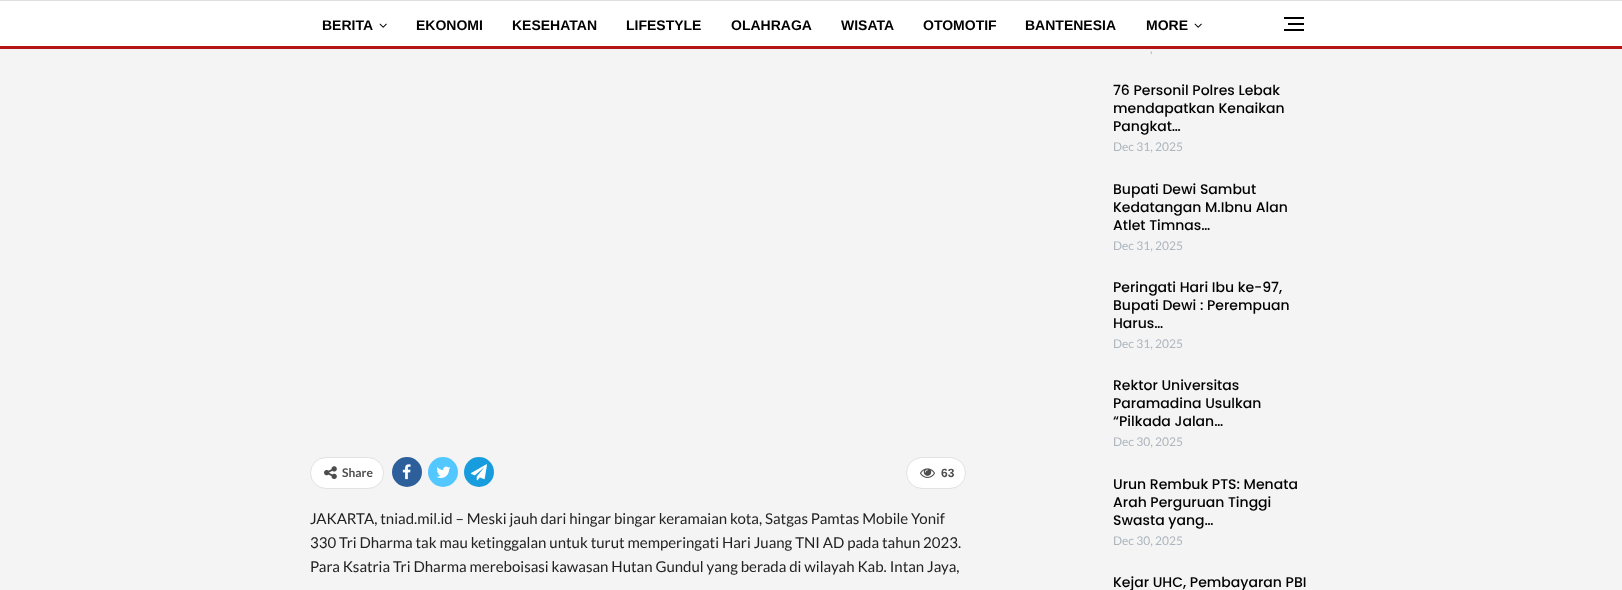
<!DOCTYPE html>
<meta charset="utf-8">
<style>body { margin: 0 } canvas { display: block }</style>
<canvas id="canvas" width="1622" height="590"></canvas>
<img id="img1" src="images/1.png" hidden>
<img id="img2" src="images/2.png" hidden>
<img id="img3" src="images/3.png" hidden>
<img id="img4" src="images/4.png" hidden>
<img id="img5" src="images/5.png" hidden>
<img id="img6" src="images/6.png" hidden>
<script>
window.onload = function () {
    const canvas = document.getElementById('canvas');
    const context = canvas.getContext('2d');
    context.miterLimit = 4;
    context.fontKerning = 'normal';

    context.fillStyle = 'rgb(244, 244, 244)';
    context.fillRect(0, 0, 1622, 590);
    context.fillStyle = 'rgb(255, 255, 255)';
    context.fillRect(0, 1, 1622, 45);
    context.fillStyle = 'rgb(222, 222, 222)';
    context.fillRect(0, 0, 1622, 1);
    context.fillStyle = 'rgb(180, 20, 20)';
    context.fillRect(0, 46, 1622, 3);
    context.drawImage(document.getElementById('img1'), 379, 23, 8, 5);
    context.drawImage(document.getElementById('img1'), 1194, 23, 8, 5);
    context.fillStyle = 'rgb(0, 0, 0)';
    context.fillRect(1288, 23, 16, 2);
    context.fillRect(1284, 17, 20, 2);
    context.fillRect(1284, 29, 20, 2);
    context.fillStyle = 'rgb(255, 255, 255)';
    context.beginPath();
    context.roundRect(310.5, 457.5, 73, 31, 15.5);
    context.fill();
    context.strokeStyle = 'rgb(226, 226, 226)';
    context.stroke();
    context.drawImage(document.getElementById('img2'), 324, 466, 13, 14);
    context.fillStyle = 'rgb(45, 95, 154)';
    context.beginPath();
    context.arc(407, 472, 15, 0, 2 * Math.PI);
    context.fill();
    context.drawImage(document.getElementById('img3'), 402, 464, 9, 16);
    context.fillStyle = 'rgb(83, 199, 255)';
    context.beginPath();
    context.arc(443, 472, 15, 0, 2 * Math.PI);
    context.fill();
    context.drawImage(document.getElementById('img4'), 436, 466, 15, 12);
    context.fillStyle = 'rgb(23, 156, 222)';
    context.beginPath();
    context.arc(479, 472, 15, 0, 2 * Math.PI);
    context.fill();
    context.drawImage(document.getElementById('img5'), 471, 464, 16, 17);
    context.fillStyle = 'rgb(255, 255, 255)';
    context.beginPath();
    context.roundRect(906.5, 457.5, 59, 31, 15.5);
    context.fill();
    context.stroke();
    context.drawImage(document.getElementById('img6'), 920, 468, 15, 10);
    context.font = 'bold 14px Liberation Sans';
    context.fillStyle = 'rgb(0, 0, 0)';
    context.fillText('BERITA', 322, 30);
    context.fillText('EKONOMI', 416, 30);
    context.fillText('KESEHATAN', 512, 30);
    context.fillText('LIFESTYLE', 626, 30);
    context.fillText('OLAHRAGA', 731, 30);
    context.fillText('WISATA', 841, 30);
    context.fillText('OTOMOTIF', 923, 30);
    context.fillText('BANTENESIA', 1025, 30);
    context.fillText('MORE', 1146, 30);
    context.font = 'bold 12px Lato';
    context.fillStyle = 'rgb(77, 77, 77)';
    context.fillText('Share', 342, 477);
    context.font = 'bold 12px Liberation Sans';
    context.fillText('63', 941, 477);
    context.font = '15px Lato';
    context.fillStyle = 'rgb(34, 34, 34)';
    context.fillText('JAKARTA, tniad.mil.id – Meski jauh dari hingar bingar keramaian kota, Satgas Pamtas Mobile Yonif', 310, 524);
    context.fillText('330 Tri Dharma tak mau ketinggalan untuk turut memperingati Hari Juang TNI AD pada tahun 2023.', 310, 548);
    context.fillText('Para Ksatria Tri Dharma mereboisasi kawasan Hutan Gundul yang berada di wilayah Kab. Intan Jaya,', 310, 572);
    context.font = '12px Lato';
    context.fillStyle = 'rgb(173, 181, 189)';
    context.fillText(',', 1150, 53);
    context.font = '500 14px Poppins';
    context.fillStyle = 'rgb(0, 0, 0)';
    context.fillText('76 Personil Polres Lebak', 1113, 95);
    context.fillText('mendapatkan Kenaikan', 1113, 113);
    context.fillText('Pangkat…', 1113, 131);
    context.font = '12px Lato';
    context.fillStyle = 'rgb(173, 181, 189)';
    context.fillText('Dec 31, 2025', 1113, 151);
    context.font = '500 14px Poppins';
    context.fillStyle = 'rgb(0, 0, 0)';
    context.fillText('Bupati Dewi Sambut', 1113, 194);
    context.fillText('Kedatangan M.Ibnu Alan', 1113, 212);
    context.fillText('Atlet Timnas…', 1113, 230);
    context.font = '12px Lato';
    context.fillStyle = 'rgb(173, 181, 189)';
    context.fillText('Dec 31, 2025', 1113, 250);
    context.font = '500 14px Poppins';
    context.fillStyle = 'rgb(0, 0, 0)';
    context.fillText('Peringati Hari Ibu ke-97,', 1113, 292);
    context.fillText('Bupati Dewi : Perempuan', 1113, 310);
    context.fillText('Harus…', 1113, 328);
    context.font = '12px Lato';
    context.fillStyle = 'rgb(173, 181, 189)';
    context.fillText('Dec 31, 2025', 1113, 348);
    context.font = '500 14px Poppins';
    context.fillStyle = 'rgb(0, 0, 0)';
    context.fillText('Rektor Universitas', 1113, 390);
    context.fillText('Paramadina Usulkan', 1113, 408);
    context.fillText('“Pilkada Jalan…', 1113, 426);
    context.font = '12px Lato';
    context.fillStyle = 'rgb(173, 181, 189)';
    context.fillText('Dec 30, 2025', 1113, 446);
    context.font = '500 14px Poppins';
    context.fillStyle = 'rgb(0, 0, 0)';
    context.fillText('Urun Rembuk PTS: Menata', 1113, 489);
    context.fillText('Arah Perguruan Tinggi', 1113, 507);
    context.fillText('Swasta yang…', 1113, 525);
    context.font = '12px Lato';
    context.fillStyle = 'rgb(173, 181, 189)';
    context.fillText('Dec 30, 2025', 1113, 545);
    context.font = '500 14px Poppins';
    context.fillStyle = 'rgb(0, 0, 0)';
    context.fillText('Kejar UHC, Pembayaran PBI', 1113, 587);
};
</script>
